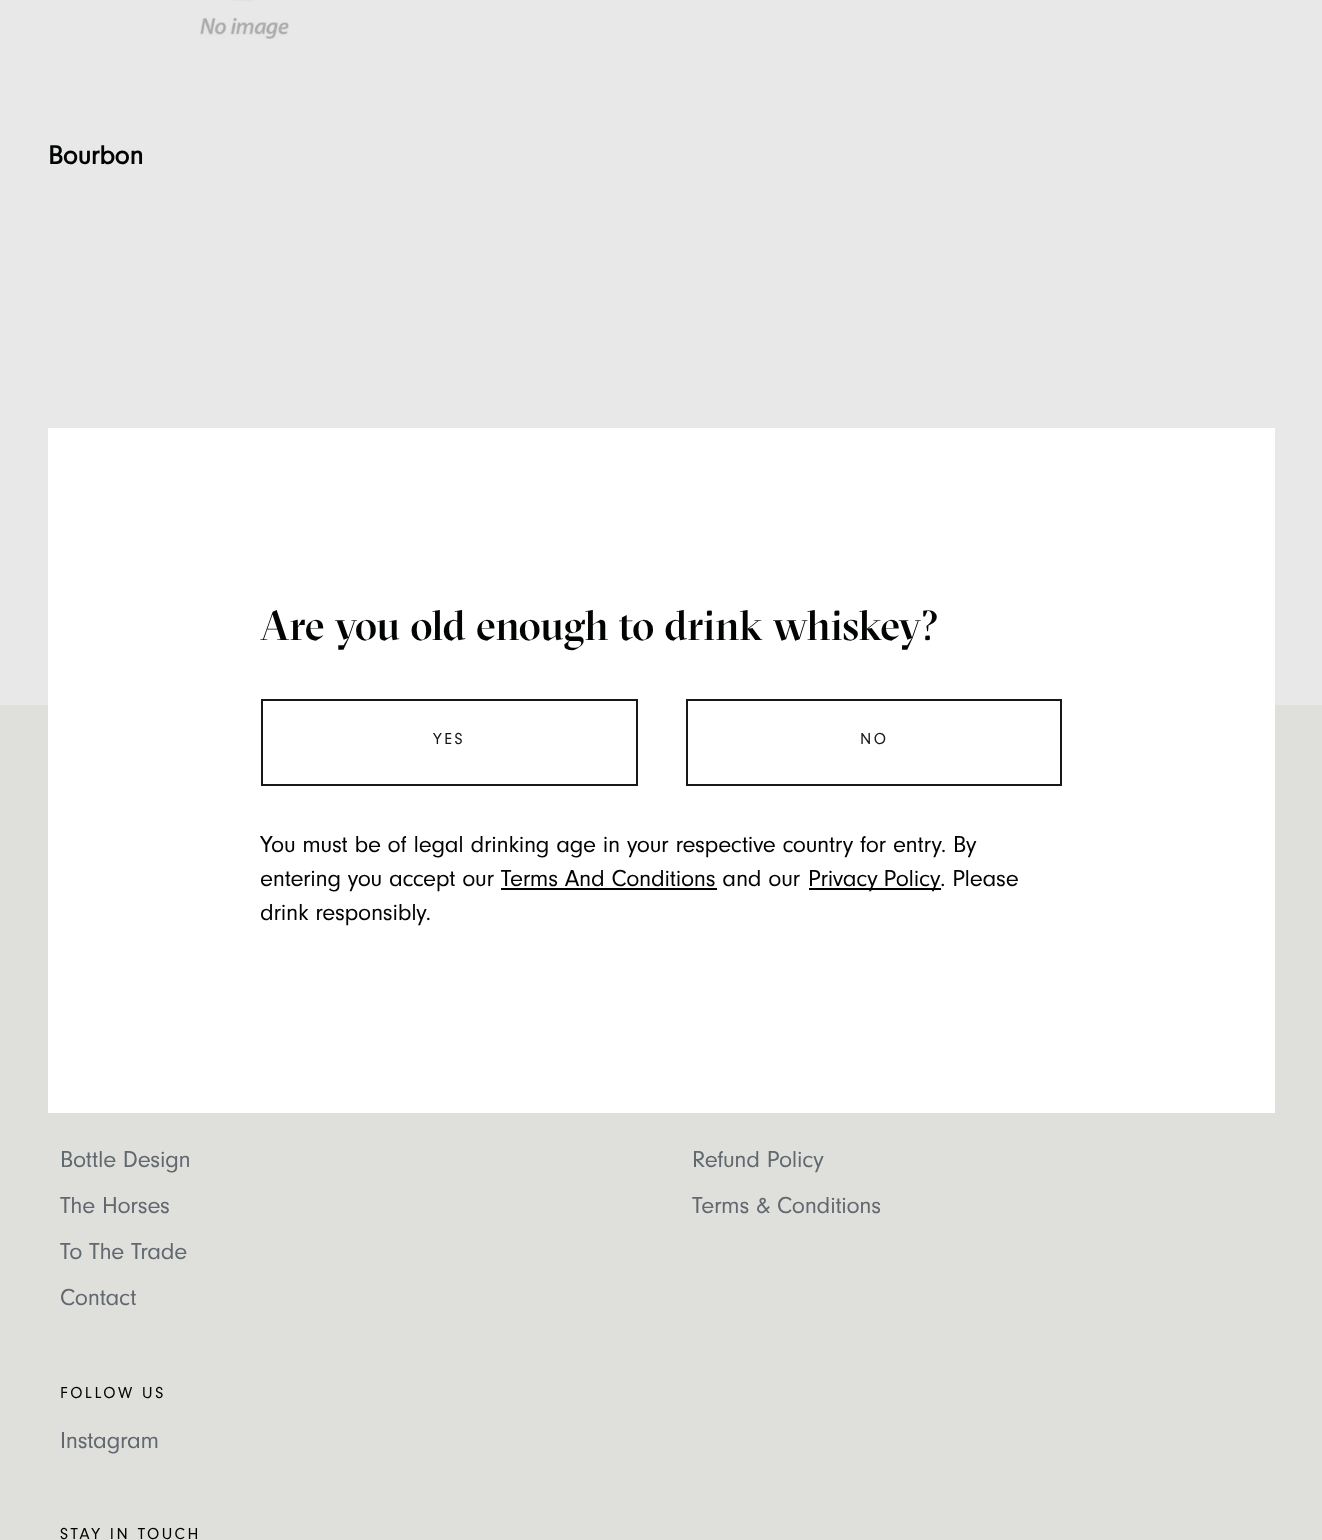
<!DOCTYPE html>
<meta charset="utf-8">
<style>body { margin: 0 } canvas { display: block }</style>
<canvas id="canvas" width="1322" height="1540"></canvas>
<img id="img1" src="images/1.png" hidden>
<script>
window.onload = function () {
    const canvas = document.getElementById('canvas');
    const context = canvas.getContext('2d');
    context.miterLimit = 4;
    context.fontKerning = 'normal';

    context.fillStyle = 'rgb(232, 232, 232)';
    context.fillRect(0, 0, 1322, 1540);
    context.drawImage(document.getElementById('img1'), 200, 0, 89, 39);
    context.fillStyle = 'rgb(223, 224, 220)';
    context.fillRect(0, 705, 1322, 835);
    context.fillStyle = 'rgb(255, 255, 255)';
    context.fillRect(48, 428, 1227, 685);
    context.strokeStyle = 'rgb(23, 25, 25)';
    context.lineWidth = 2;
    context.strokeRect(262, 700, 375, 85);
    context.strokeRect(687, 700, 374, 85);
    context.fillStyle = 'rgb(0, 0, 0)';
    context.fillRect(809, 888, 132, 2);
    context.font = 'bold 27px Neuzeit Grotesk';
    context.fillStyle = 'rgb(2, 3, 3)';
    context.fillText('Bourbon', 48, 164);
    context.letterSpacing = '-0.25px';
    context.font = '24px Neuzeit Grotesk';
    context.fillStyle = 'rgb(98, 104, 111)';
    context.fillText('Bottle Design', 60, 1167);
    context.fillText('The Horses', 60, 1213);
    context.fillText('To The Trade', 60, 1259);
    context.fillText('Contact', 60, 1305);
    context.fillText('Refund Policy', 692, 1167);
    context.fillText('Terms & Conditions', 692, 1213);
    context.letterSpacing = '2.5px';
    context.font = '16.5px Neuzeit Grotesk';
    context.fillStyle = 'rgb(2, 3, 3)';
    context.fillText('FOLLOW US', 60, 1398);
    context.letterSpacing = '-0.25px';
    context.font = '24px Neuzeit Grotesk';
    context.fillStyle = 'rgb(98, 104, 111)';
    context.fillText('Instagram', 60, 1448);
    context.letterSpacing = '2.5px';
    context.font = '16.5px Neuzeit Grotesk';
    context.fillStyle = 'rgb(2, 3, 3)';
    context.fillText('STAY IN TOUCH', 60, 1539);
    context.letterSpacing = '0px';
    context.font = '500 42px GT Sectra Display';
    context.fillText('Are you old enough to drink whiskey?', 260, 640);
    context.letterSpacing = '2.5px';
    context.font = '16.5px Neuzeit Grotesk';
    context.fillStyle = 'rgb(23, 25, 25)';
    context.fillText('YES', 433, 744);
    context.fillText('NO', 860, 744);
    context.letterSpacing = '-0.25px';
    context.font = '24px Neuzeit Grotesk';
    context.fillStyle = 'rgb(2, 3, 3)';
    context.fillText('You must be of legal drinking age in your respective country for entry. By', 260, 852);
    context.fillText('entering you accept our Terms And Conditions and our', 260, 886);
    context.wordSpacing = '-1px';
    context.fillText('Privacy Policy', 808, 886);
    context.wordSpacing = '0px';
    context.fillText('. Please', 940, 886);
    context.fillStyle = 'rgb(0, 0, 0)';
    context.fillRect(501, 888, 216, 2);
    context.fillStyle = 'rgb(2, 3, 3)';
    context.fillText('drink responsibly.', 260, 920);
};
</script>
